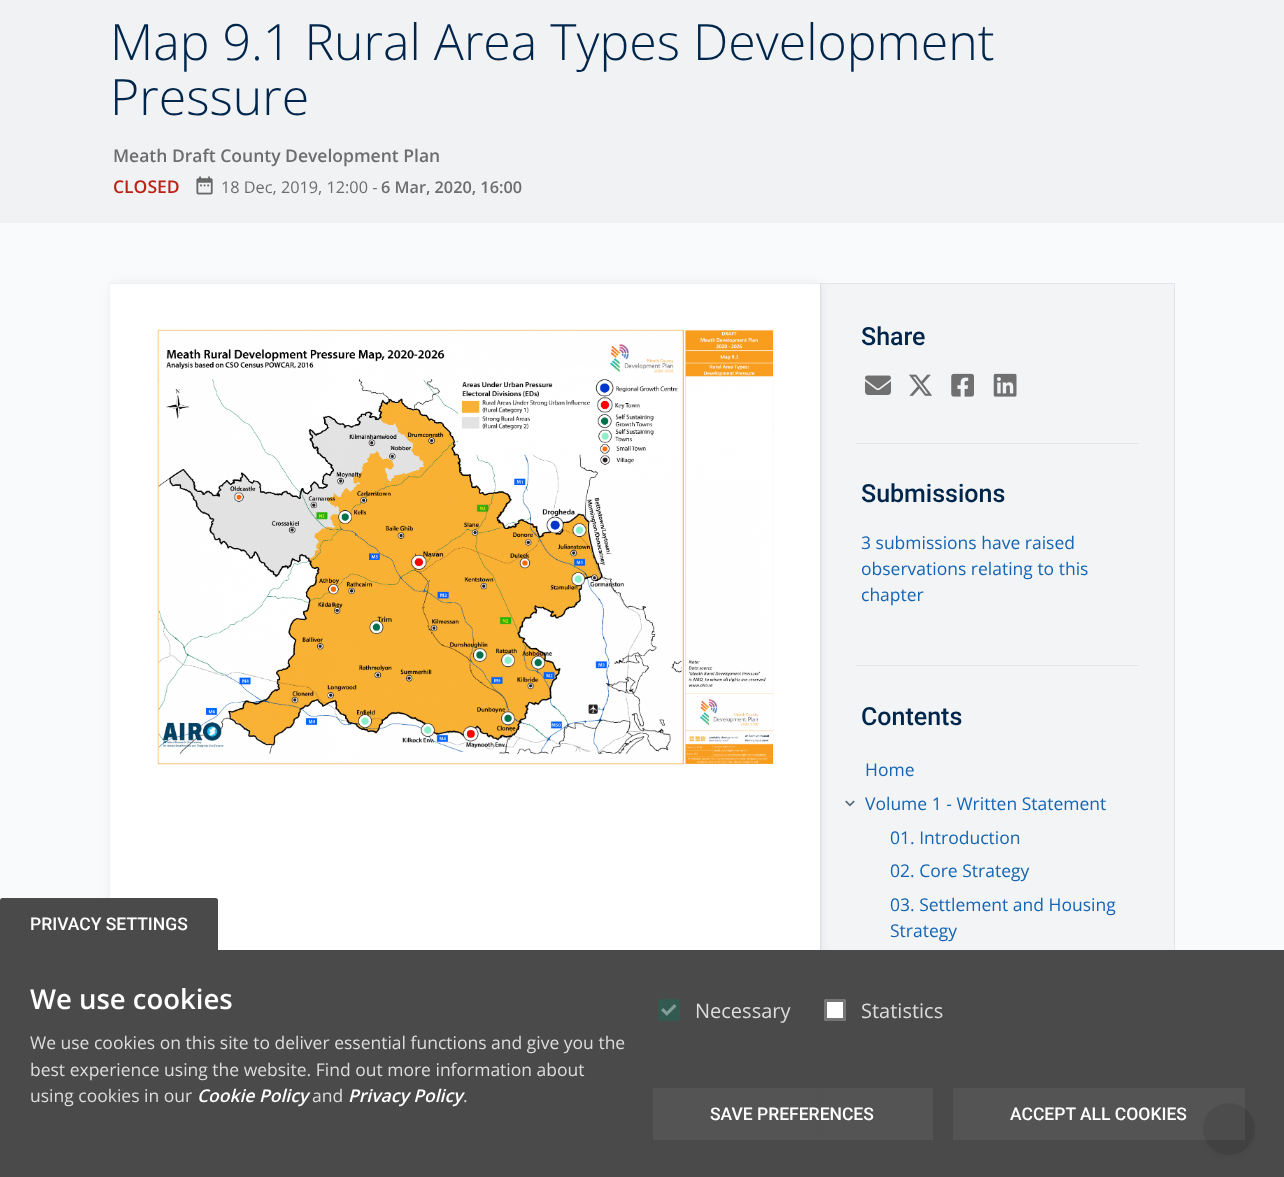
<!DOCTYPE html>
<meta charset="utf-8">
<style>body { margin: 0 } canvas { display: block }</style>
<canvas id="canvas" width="1284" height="1177"></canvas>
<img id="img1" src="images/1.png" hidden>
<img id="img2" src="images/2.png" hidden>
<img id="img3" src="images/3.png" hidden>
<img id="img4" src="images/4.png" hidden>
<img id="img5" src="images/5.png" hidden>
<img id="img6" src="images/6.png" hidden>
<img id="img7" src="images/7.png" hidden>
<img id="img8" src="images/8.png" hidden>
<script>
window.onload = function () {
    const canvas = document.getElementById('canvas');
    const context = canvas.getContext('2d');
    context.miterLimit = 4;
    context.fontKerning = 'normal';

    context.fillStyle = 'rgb(249, 250, 251)';
    context.fillRect(0, 0, 1284, 1177);
    context.fillStyle = 'rgb(240, 242, 244)';
    context.fillRect(0, 0, 1284, 223);
    context.drawImage(document.getElementById('img1'), 196, 176, 17, 19);
    context.fillStyle = 'rgba(26, 26, 26, 0.08)';
    context.filter = 'blur(5px)';
    context.beginPath();
    context.rect(111, 284, 710, 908);
    context.fill();
    context.filter = 'none';
    context.fillStyle = 'rgb(255, 255, 255)';
    context.fillRect(110, 284, 710, 893);
    context.fillStyle = 'rgb(236, 240, 243)';
    context.fillRect(110, 283, 710, 1);
    context.drawImage(document.getElementById('img2'), 157, 329, 617, 436);
    context.fillStyle = 'rgba(70, 71, 102, 0.03)';
    context.fillRect(820, 283, 355, 894);
    context.strokeStyle = 'rgba(20, 71, 102, 0.08)';
    context.strokeRect(820.5, 283.5, 354, 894);
    context.drawImage(document.getElementById('img3'), 865, 375, 26, 20);
    context.drawImage(document.getElementById('img4'), 909, 374, 23, 22);
    context.drawImage(document.getElementById('img5'), 951, 373, 23, 24);
    context.drawImage(document.getElementById('img6'), 993, 373, 24, 24);
    context.fillStyle = 'rgb(226, 231, 235)';
    context.fillRect(856, 443, 283, 1);
    context.fillRect(856, 665, 283, 1);
    context.drawImage(document.getElementById('img7'), 845, 800, 10, 7);
    context.fillStyle = 'rgba(87, 88, 88, 0.12)';
    context.filter = 'blur(6px)';
    context.beginPath();
    context.roundRect(1203, 1104, 52, 52, 26);
    context.fill();
    context.filter = 'none';
    context.fillStyle = 'rgba(87, 88, 88, 0.14)';
    context.filter = 'blur(3px)';
    context.beginPath();
    context.roundRect(1203, 1108, 52, 52, 26);
    context.fill();
    context.filter = 'none';
    context.fillStyle = 'rgba(87, 88, 88, 0.2)';
    context.filter = 'blur(2.5px)';
    context.beginPath();
    context.roundRect(1204, 1106, 50, 50, 25);
    context.fill();
    context.filter = 'none';
    context.fillStyle = 'rgb(87, 88, 88)';
    context.beginPath();
    context.arc(1229, 1129, 26, 0, 2 * Math.PI);
    context.fill();
    context.fillStyle = 'rgba(64, 64, 64, 0.95)';
    context.beginPath();
    context.roundRect(0, 898, 218, 52, [2.5, 2.5, 0, 0]);
    context.fill();
    context.fillRect(0, 950, 1284, 227);
    context.fillStyle = 'rgb(50, 90, 81)';
    context.beginPath();
    context.roundRect(658, 999, 22, 22, 2.5);
    context.fill();
    context.drawImage(document.getElementById('img8'), 661, 1004, 16, 12);
    context.beginPath();
    context.roundRect(659.5, 1000.5, 19, 19, 1);
    context.strokeStyle = 'rgb(50, 90, 81)';
    context.lineWidth = 3;
    context.stroke();
    context.fillStyle = 'rgb(255, 255, 255)';
    context.beginPath();
    context.roundRect(824, 999, 22, 22, 2.5);
    context.fill();
    context.beginPath();
    context.roundRect(825.5, 1000.5, 19, 19, 1);
    context.strokeStyle = 'rgba(0, 0, 0, 0.54)';
    context.stroke();
    context.fillStyle = 'rgba(255, 255, 255, 0.06)';
    context.fillRect(653, 1088, 280, 52);
    context.fillRect(953, 1088, 292, 52);
    context.font = '300 50px Open Sans';
    context.fillStyle = 'rgb(0, 37, 75)';
    context.fillText('Map 9.1 Rural Area Types Development', 110, 60);
    context.fillText('Pressure', 110, 115);
    context.font = '600 17.5px Open Sans';
    context.fillStyle = 'rgb(109, 109, 109)';
    context.fillText('Meath Draft County Development Plan', 113, 162);
    context.fillStyle = 'rgb(187, 35, 23)';
    context.fillText('CLOSED', 113, 193);
    context.font = '16.25px Open Sans';
    context.fillStyle = 'rgb(109, 109, 109)';
    context.fillText('18 Dec, 2019, 12:00 -', 221, 193);
    context.font = '600 16.25px Open Sans';
    context.fillText('6 Mar, 2020, 16:00', 381, 193);
    context.font = '500 25px Roboto';
    context.fillStyle = 'rgb(0, 37, 75)';
    context.fillText('Share', 861, 345);
    context.fillText('Submissions', 861, 502);
    context.font = '17.5px Open Sans';
    context.fillStyle = 'rgb(20, 101, 180)';
    context.fillText('3 submissions have raised', 861, 549);
    context.fillText('observations relating to this', 861, 575);
    context.fillText('chapter', 861, 601);
    context.font = '500 25px Roboto';
    context.fillStyle = 'rgb(0, 37, 75)';
    context.fillText('Contents', 861, 725);
    context.font = '17.5px Open Sans';
    context.fillStyle = 'rgb(20, 101, 180)';
    context.fillText('Home', 865, 776);
    context.fillText('Volume 1 - Written Statement', 865, 810);
    context.fillText('01. Introduction', 890, 844);
    context.fillText('02. Core Strategy', 890, 877);
    context.fillText('03. Settlement and Housing', 890, 911);
    context.fillText('Strategy', 890, 937);
    context.font = '500 17.5px Roboto';
    context.fillStyle = 'rgb(255, 255, 255)';
    context.fillText('PRIVACY SETTINGS', 30, 930);
    context.font = '600 27.5px Open Sans';
    context.fillText('We use cookies', 30, 1009);
    context.font = '17.5px Open Sans';
    context.fillStyle = 'rgb(221, 221, 221)';
    context.fillText('We use cookies on this site to deliver essential functions and give you the', 30, 1049);
    context.fillText('best experience using the website. Find out more information about', 30, 1076);
    context.fillText('using cookies in our', 30, 1102);
    context.font = 'italic 600 17.5px Open Sans';
    context.fillStyle = 'rgb(255, 255, 255)';
    context.fillText('Cookie Policy', 197, 1102);
    context.font = '17.5px Open Sans';
    context.fillStyle = 'rgb(221, 221, 221)';
    context.fillText('and', 312, 1102);
    context.font = 'italic 600 17.5px Open Sans';
    context.fillStyle = 'rgb(255, 255, 255)';
    context.fillText('Privacy Policy', 348, 1102);
    context.font = '17.5px Open Sans';
    context.fillStyle = 'rgb(221, 221, 221)';
    context.fillText('.', 463, 1102);
    context.font = '20px Open Sans';
    context.fillText('Necessary', 695, 1018);
    context.fillText('Statistics', 861, 1018);
    context.font = '500 17.5px Roboto';
    context.fillStyle = 'rgb(255, 255, 255)';
    context.fillText('SAVE PREFERENCES', 710, 1120);
    context.fillText('ACCEPT ALL COOKIES', 1010, 1120);
};
</script>
